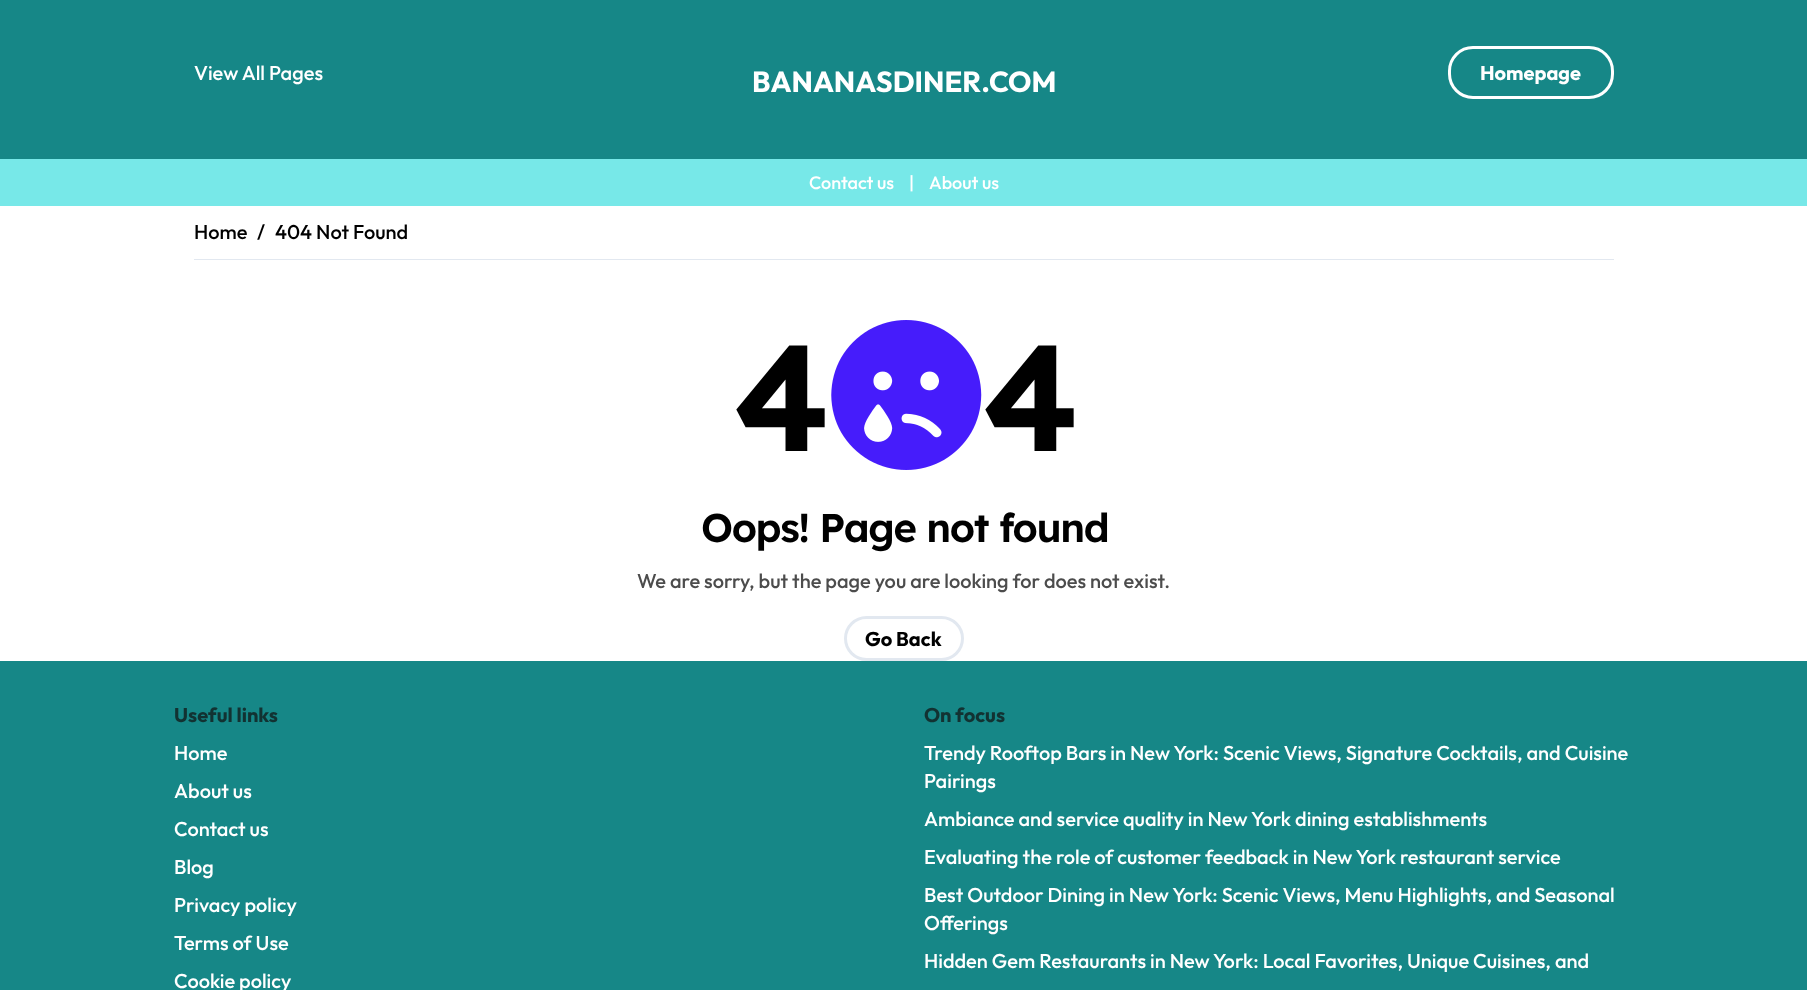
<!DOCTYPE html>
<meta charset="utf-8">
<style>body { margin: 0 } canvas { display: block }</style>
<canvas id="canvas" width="1807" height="990"></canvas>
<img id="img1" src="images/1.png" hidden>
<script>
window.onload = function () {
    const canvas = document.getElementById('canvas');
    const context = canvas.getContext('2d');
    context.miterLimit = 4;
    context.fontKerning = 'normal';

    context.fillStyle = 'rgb(255, 255, 255)';
    context.fillRect(0, 0, 1807, 990);
    context.fillStyle = 'rgb(22, 135, 135)';
    context.fillRect(0, 0, 1807, 159);
    context.fillStyle = 'rgb(119, 232, 232)';
    context.fillRect(0, 159, 1807, 47);
    context.beginPath();
    context.roundRect(1449.5, 47.5, 163, 50, 23.5);
    context.strokeStyle = 'rgb(255, 255, 255)';
    context.lineWidth = 3;
    context.stroke();
    context.fillStyle = 'rgb(226, 232, 240)';
    context.fillRect(194, 259, 1420, 1);
    context.drawImage(document.getElementById('img1'), 831, 320, 151, 150);
    context.beginPath();
    context.roundRect(845.5, 617.5, 117, 42, 21);
    context.strokeStyle = 'rgb(226, 232, 240)';
    context.stroke();
    context.fillStyle = 'rgb(22, 135, 135)';
    context.fillRect(0, 661, 1807, 329);
    context.font = '500 20px Outfit';
    context.fillStyle = 'rgb(255, 255, 255)';
    context.fillText('View All Pages', 194, 80);
    context.font = 'bold 29px Outfit';
    context.fillText('BANANASDINER.COM', 752, 92);
    context.font = 'bold 20px Outfit';
    context.fillText('Homepage', 1480, 80);
    context.font = '500 18px Outfit';
    context.fillText('Contact us', 809, 189);
    context.fillText('|', 909, 189);
    context.fillText('About us', 929, 189);
    context.font = '500 20px Outfit';
    context.fillStyle = 'rgb(0, 0, 0)';
    context.fillText('Home', 194, 239);
    context.fillText('/', 257, 239);
    context.fillText('404 Not Found', 275, 239);
    context.letterSpacing = '-5px';
    context.font = '600 150px Lexend Deca';
    context.fillText('4', 733, 451);
    context.fillText('4', 982, 451);
    context.letterSpacing = '-1.4px';
    context.font = '600 40px Lexend Deca';
    context.fillText('Oops! Page not found', 701, 542);
    context.letterSpacing = '0px';
    context.font = '500 20px Outfit';
    context.fillStyle = 'rgb(76, 76, 76)';
    context.fillText('We are sorry, but the page you are looking for does not exist.', 637, 588);
    context.font = 'bold 20px Outfit';
    context.fillStyle = 'rgb(0, 0, 0)';
    context.fillText('Go Back', 865, 646);
    context.fillStyle = 'rgb(18, 50, 50)';
    context.fillText('Useful links', 174, 722);
    context.font = '500 20px Outfit';
    context.fillStyle = 'rgb(255, 255, 255)';
    context.fillText('Home', 174, 760);
    context.fillText('About us', 174, 798);
    context.fillText('Contact us', 174, 836);
    context.fillText('Blog', 174, 874);
    context.fillText('Privacy policy', 174, 912);
    context.fillText('Terms of Use', 174, 950);
    context.fillText('Cookie policy', 174, 988);
    context.font = 'bold 20px Outfit';
    context.fillStyle = 'rgb(18, 50, 50)';
    context.fillText('On focus', 924, 722);
    context.font = '500 20px Outfit';
    context.fillStyle = 'rgb(255, 255, 255)';
    context.fillText('Trendy Rooftop Bars in New York: Scenic Views, Signature Cocktails, and Cuisine', 924, 760);
    context.fillText('Pairings', 924, 788);
    context.fillText('Ambiance and service quality in New York dining establishments', 924, 826);
    context.fillText('Evaluating the role of customer feedback in New York restaurant service', 924, 864);
    context.fillText('Best Outdoor Dining in New York: Scenic Views, Menu Highlights, and Seasonal', 924, 902);
    context.fillText('Offerings', 924, 930);
    context.fillText('Hidden Gem Restaurants in New York: Local Favorites, Unique Cuisines, and', 924, 968);
};
</script>
